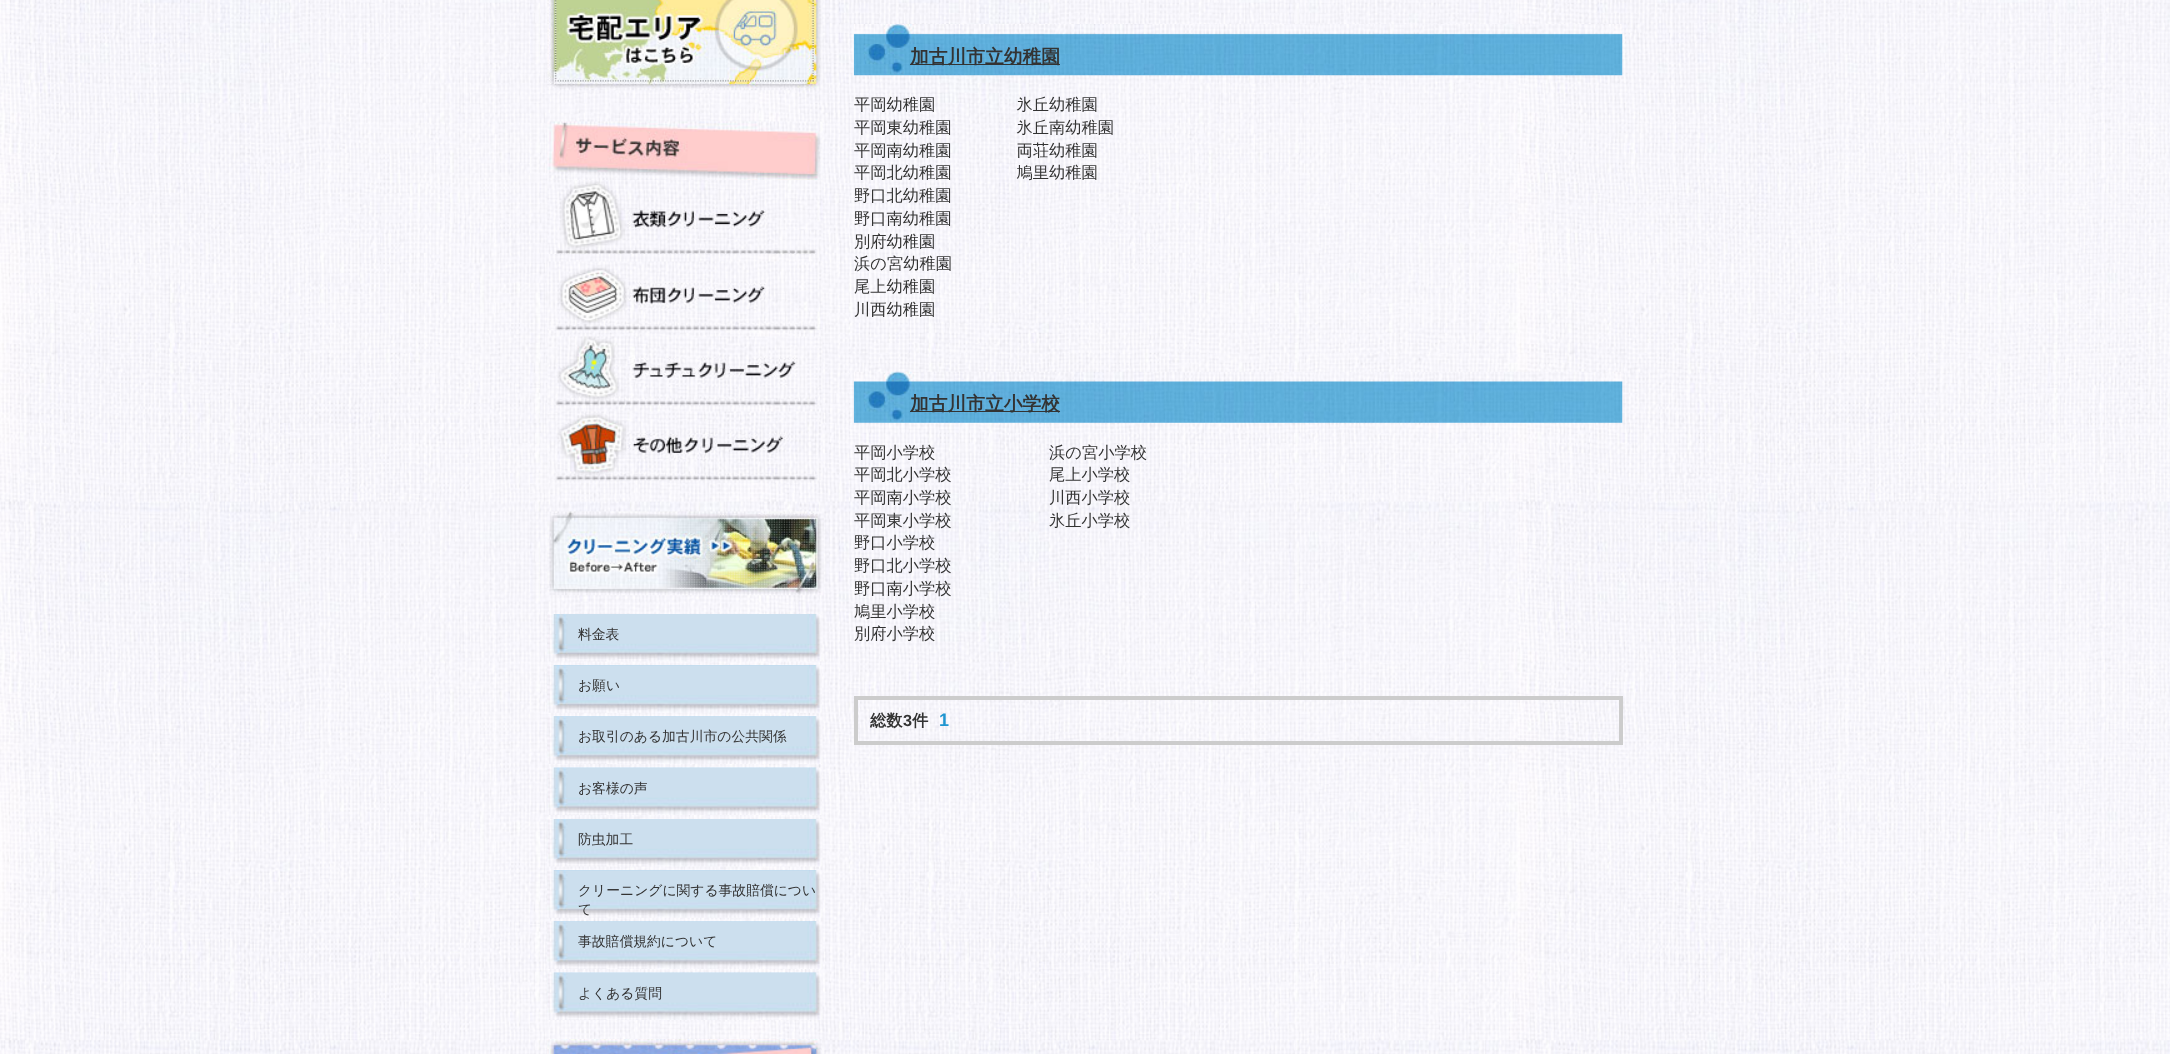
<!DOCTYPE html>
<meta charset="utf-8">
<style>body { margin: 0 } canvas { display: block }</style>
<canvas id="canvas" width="2170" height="1054"></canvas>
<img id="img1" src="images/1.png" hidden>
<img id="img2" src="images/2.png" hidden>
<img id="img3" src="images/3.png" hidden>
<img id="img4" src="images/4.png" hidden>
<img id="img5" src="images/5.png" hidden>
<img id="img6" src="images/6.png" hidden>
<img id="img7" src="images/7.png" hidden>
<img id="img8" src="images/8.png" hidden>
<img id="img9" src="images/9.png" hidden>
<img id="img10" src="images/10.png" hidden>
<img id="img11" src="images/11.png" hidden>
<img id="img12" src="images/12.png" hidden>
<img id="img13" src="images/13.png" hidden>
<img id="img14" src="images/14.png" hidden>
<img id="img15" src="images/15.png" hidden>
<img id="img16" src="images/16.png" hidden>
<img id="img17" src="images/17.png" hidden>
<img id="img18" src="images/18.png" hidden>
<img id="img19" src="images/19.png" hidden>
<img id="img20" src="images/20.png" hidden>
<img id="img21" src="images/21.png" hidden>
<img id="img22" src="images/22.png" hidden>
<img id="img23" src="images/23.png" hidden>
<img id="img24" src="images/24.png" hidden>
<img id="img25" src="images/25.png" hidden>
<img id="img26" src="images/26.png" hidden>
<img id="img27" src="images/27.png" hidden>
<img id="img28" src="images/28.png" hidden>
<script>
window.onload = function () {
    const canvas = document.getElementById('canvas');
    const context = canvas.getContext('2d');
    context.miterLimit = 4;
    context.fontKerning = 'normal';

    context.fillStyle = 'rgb(255, 255, 255)';
    context.fillRect(0, 0, 2170, 1054);
    context.drawImage(document.getElementById('img1'), 0, 0, 2170, 1054);
    context.drawImage(document.getElementById('img2'), 853, 24, 770, 52);
    context.fillStyle = 'rgb(51, 51, 51)';
    context.fillRect(910, 64, 150, 1);
    context.drawImage(document.getElementById('img3'), 853, 371, 770, 52);
    context.fillRect(910, 411, 150, 1);
    context.strokeStyle = 'rgb(204, 204, 204)';
    context.lineWidth = 4;
    context.strokeRect(856, 698, 765, 45);
    context.drawImage(document.getElementById('img4'), 547, 0, 276, 91);
    context.drawImage(document.getElementById('img5'), 547, 121, 276, 60);
    context.drawImage(document.getElementById('img6'), 547, 180, 276, 74);
    context.drawImage(document.getElementById('img7'), 547, 261, 276, 70);
    context.drawImage(document.getElementById('img8'), 547, 336, 276, 70);
    context.drawImage(document.getElementById('img9'), 547, 411, 276, 70);
    context.drawImage(document.getElementById('img10'), 547, 511, 277, 85);
    context.drawImage(document.getElementById('img11'), 547, 614, 276, 48);
    context.drawImage(document.getElementById('img12'), 547, 614, 271, 40);
    context.drawImage(document.getElementById('img13'), 547, 665, 275, 48);
    context.drawImage(document.getElementById('img14'), 547, 665, 271, 41);
    context.drawImage(document.getElementById('img15'), 547, 716, 276, 48);
    context.drawImage(document.getElementById('img16'), 547, 716, 271, 41);
    context.drawImage(document.getElementById('img17'), 547, 767, 275, 48);
    context.drawImage(document.getElementById('img18'), 548, 767, 270, 41);
    context.drawImage(document.getElementById('img19'), 547, 819, 276, 48);
    context.drawImage(document.getElementById('img20'), 548, 819, 270, 40);
    context.drawImage(document.getElementById('img21'), 547, 870, 276, 48);
    context.drawImage(document.getElementById('img22'), 547, 870, 271, 41);
    context.drawImage(document.getElementById('img23'), 547, 921, 276, 48);
    context.drawImage(document.getElementById('img24'), 547, 921, 271, 41);
    context.drawImage(document.getElementById('img25'), 547, 972, 276, 48);
    context.drawImage(document.getElementById('img26'), 548, 972, 270, 41);
    context.drawImage(document.getElementById('img27'), 547, 1039, 1, 15);
    context.drawImage(document.getElementById('img28'), 547, 1039, 275, 15);
    context.font = 'bold 18.75px WenQuanYi Zen Hei';
    context.fillText('加古川市立幼稚園', 910, 63);
    context.font = '500 16.25px WenQuanYi Zen Hei';
    context.fillText('平岡幼稚園　　　　　氷丘幼稚園', 854, 110);
    context.fillText('平岡東幼稚園　　　　氷丘南幼稚園', 854, 133);
    context.fillText('平岡南幼稚園　　　　両荘幼稚園', 854, 156);
    context.fillText('平岡北幼稚園　　　　鳩里幼稚園', 854, 178);
    context.fillText('野口北幼稚園', 854, 201);
    context.fillText('野口南幼稚園', 854, 224);
    context.fillText('別府幼稚園', 854, 247);
    context.fillText('浜の宮幼稚園', 854, 269);
    context.fillText('尾上幼稚園', 854, 292);
    context.fillText('川西幼稚園', 854, 315);
    context.font = 'bold 18.75px WenQuanYi Zen Hei';
    context.fillText('加古川市立小学校', 910, 410);
    context.font = '500 16.25px WenQuanYi Zen Hei';
    context.fillText('平岡小学校　　　　　　　浜の宮小学校', 854, 458);
    context.fillText('平岡北小学校　　　　　　尾上小学校', 854, 480);
    context.fillText('平岡南小学校　　　　　　川西小学校', 854, 503);
    context.fillText('平岡東小学校　　　　　　氷丘小学校', 854, 526);
    context.fillText('野口小学校', 854, 548);
    context.fillText('野口北小学校', 854, 571);
    context.fillText('野口南小学校', 854, 594);
    context.fillText('鳩里小学校', 854, 617);
    context.fillText('別府小学校', 854, 639);
    context.font = 'bold 16.25px WenQuanYi Zen Hei';
    context.fillText('総数', 870, 726);
    context.font = 'bold 16.25px Liberation Sans';
    context.fillText('3', 903, 726);
    context.font = 'bold 16.25px WenQuanYi Zen Hei';
    context.fillText('件', 912, 726);
    context.font = 'bold 18px Liberation Sans';
    context.fillStyle = 'rgb(32, 150, 208)';
    context.fillText('1', 939, 726);
    context.font = '500 13.8px WenQuanYi Zen Hei';
    context.fillStyle = 'rgb(51, 51, 51)';
    context.fillText('料金表', 578, 639);
    context.fillText('お願い', 578, 690);
    context.fillText('お取引のある加古川市の公共関係', 578, 741);
    context.fillText('お客様の声', 578, 793);
    context.fillText('防虫加工', 578, 844);
    context.fillText('クリーニングに関する事故賠償につい', 578, 895);
    context.fillText('て', 578, 914);
    context.fillText('事故賠償規約について', 578, 946);
    context.fillText('よくある質問', 578, 998);
};
</script>
